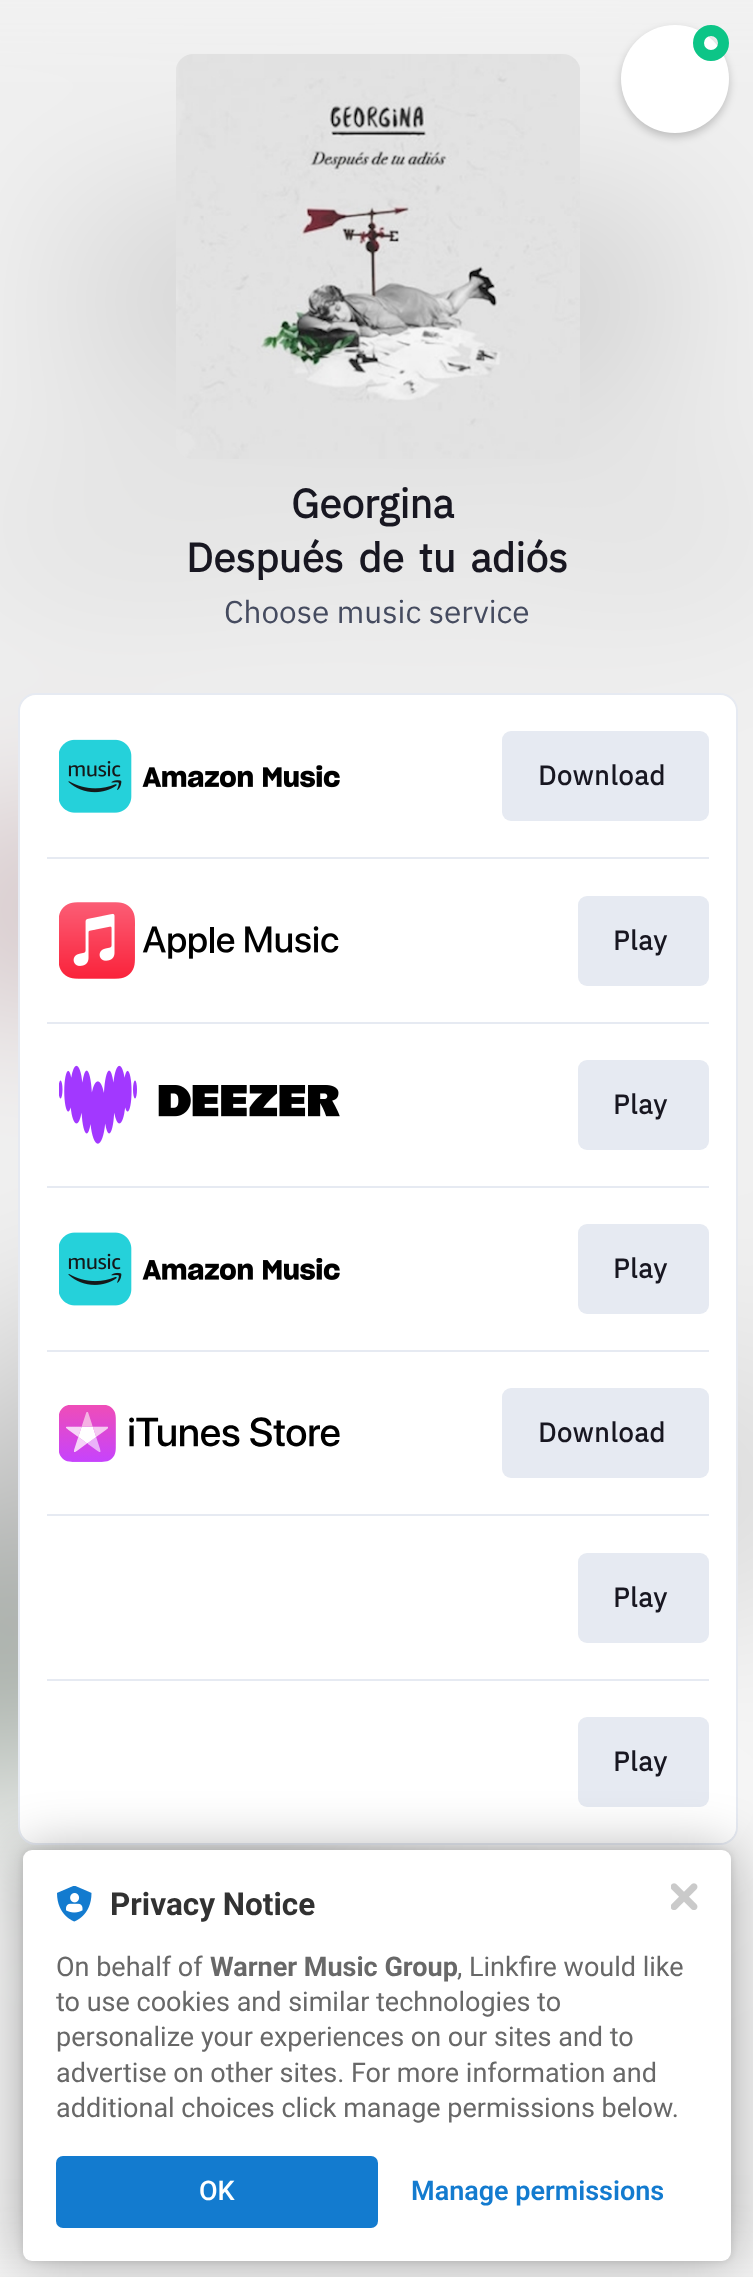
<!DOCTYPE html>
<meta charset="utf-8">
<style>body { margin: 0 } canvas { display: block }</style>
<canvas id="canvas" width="753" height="2277"></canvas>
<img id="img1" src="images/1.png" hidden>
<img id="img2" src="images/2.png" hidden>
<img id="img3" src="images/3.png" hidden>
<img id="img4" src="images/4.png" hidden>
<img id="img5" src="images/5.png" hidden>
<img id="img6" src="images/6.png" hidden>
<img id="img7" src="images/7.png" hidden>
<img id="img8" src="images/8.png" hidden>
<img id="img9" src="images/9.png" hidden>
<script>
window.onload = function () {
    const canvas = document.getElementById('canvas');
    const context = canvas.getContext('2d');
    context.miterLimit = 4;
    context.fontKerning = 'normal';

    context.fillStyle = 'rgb(255, 255, 255)';
    context.fillRect(0, 0, 753, 2277);
    context.drawImage(document.getElementById('img1'), 0, 0, 753, 2277);
    context.fillStyle = 'rgba(0, 0, 0, 0.2)';
    context.filter = 'blur(4.5px)';
    context.beginPath();
    context.roundRect(621, 29, 108, 108, 54);
    context.fill();
    context.filter = 'none';
    context.fillStyle = 'rgb(255, 255, 255)';
    context.beginPath();
    context.arc(675, 79, 54, 0, 2 * Math.PI);
    context.fill();
    context.beginPath();
    context.arc(711, 43, 12.5, 0, 2 * Math.PI);
    context.strokeStyle = 'rgb(13, 197, 135)';
    context.lineWidth = 11;
    context.stroke();
    context.drawImage(document.getElementById('img2'), 176, 54, 404, 405);
    context.beginPath();
    context.roundRect(19, 694, 718, 1150, 17);
    context.strokeStyle = 'rgb(230, 234, 242)';
    context.lineWidth = 2;
    context.stroke();
    context.beginPath();
    context.roundRect(20, 695, 716, 1148, 16);
    context.fill();
    context.drawImage(document.getElementById('img3'), 59, 739, 281, 74);
    context.fillStyle = 'rgb(230, 234, 242)';
    context.beginPath();
    context.roundRect(502, 731, 207, 90, 9);
    context.fill();
    context.fillRect(47, 857, 662, 2);
    context.drawImage(document.getElementById('img4'), 59, 902, 280, 77);
    context.beginPath();
    context.roundRect(578, 896, 131, 90, 9);
    context.fill();
    context.fillRect(47, 1022, 662, 2);
    context.drawImage(document.getElementById('img5'), 59, 1065, 281, 79);
    context.beginPath();
    context.roundRect(578, 1060, 131, 90, 9);
    context.fill();
    context.fillRect(47, 1186, 662, 2);
    context.drawImage(document.getElementById('img6'), 59, 1232, 281, 74);
    context.beginPath();
    context.roundRect(578, 1224, 131, 90, 9);
    context.fill();
    context.fillRect(47, 1350, 662, 2);
    context.drawImage(document.getElementById('img7'), 59, 1405, 281, 57);
    context.beginPath();
    context.roundRect(502, 1388, 207, 90, 9);
    context.fill();
    context.fillRect(47, 1514, 662, 2);
    context.beginPath();
    context.roundRect(578, 1553, 131, 90, 9);
    context.fill();
    context.fillRect(47, 1679, 662, 2);
    context.beginPath();
    context.roundRect(578, 1717, 131, 90, 9);
    context.fill();
    context.fillStyle = 'rgba(0, 0, 0, 0.12)';
    context.filter = 'blur(4.5px)';
    context.beginPath();
    context.roundRect(23, 1850, 708, 411, 9);
    context.fill();
    context.filter = 'none';
    context.fillStyle = 'rgba(0, 0, 0, 0.3)';
    context.filter = 'blur(27px)';
    context.beginPath();
    context.roundRect(23, 1850, 708, 411, 9);
    context.fill();
    context.filter = 'none';
    context.fillStyle = 'rgb(255, 255, 255)';
    context.beginPath();
    context.roundRect(23, 1850, 708, 411, 9);
    context.fill();
    context.drawImage(document.getElementById('img8'), 57, 1886, 35, 36);
    context.fillStyle = 'rgb(19, 123, 207)';
    context.beginPath();
    context.roundRect(56, 2156, 322, 72, 7);
    context.fill();
    context.drawImage(document.getElementById('img9'), 671, 1883, 27, 27);
    context.font = 'bold 40.5px IBM Plex Sans';
    context.fillStyle = 'rgb(24, 23, 33)';
    context.fillText('Georgina', 291, 518);
    context.wordSpacing = '5px';
    context.fillText('Después de tu adiós', 186, 572);
    context.wordSpacing = '0px';
    context.font = '31.5px IBM Plex Sans';
    context.fillStyle = 'rgb(69, 75, 95)';
    context.fillText('Choose music service', 224, 623);
    context.letterSpacing = '0.75px';
    context.font = 'bold 27px IBM Plex Sans';
    context.fillStyle = 'rgb(24, 23, 33)';
    context.fillText('Download', 538, 785);
    context.fillText('Play', 613, 950);
    context.fillText('Play', 613, 1114);
    context.fillText('Play', 613, 1278);
    context.fillText('Download', 538, 1442);
    context.fillText('Play', 613, 1607);
    context.fillText('Play', 613, 1771);
    context.letterSpacing = '0px';
    context.font = 'bold 31.5px Roboto';
    context.fillStyle = 'rgb(50, 50, 50)';
    context.fillText('Privacy Notice', 110, 1915);
    context.font = '27px Roboto';
    context.fillStyle = 'rgb(104, 104, 104)';
    context.fillText('On behalf of', 56, 1976);
    context.font = 'bold 27px Roboto';
    context.fillText('Warner Music Group', 210, 1976);
    context.font = '27px Roboto';
    context.fillText(', Linkfire would like', 457, 1976);
    context.fillText('to use cookies and similar technologies to', 56, 2011);
    context.fillText('personalize your experiences on our sites and to', 56, 2046);
    context.fillText('advertise on other sites. For more information and', 56, 2082);
    context.fillText('additional choices click manage permissions below.', 56, 2117);
    context.font = '500 27px Roboto';
    context.fillStyle = 'rgb(255, 255, 255)';
    context.fillText('OK', 199, 2200);
    context.font = '600 27px Roboto';
    context.fillStyle = 'rgb(19, 123, 207)';
    context.fillText('Manage permissions', 411, 2200);
};
</script>
